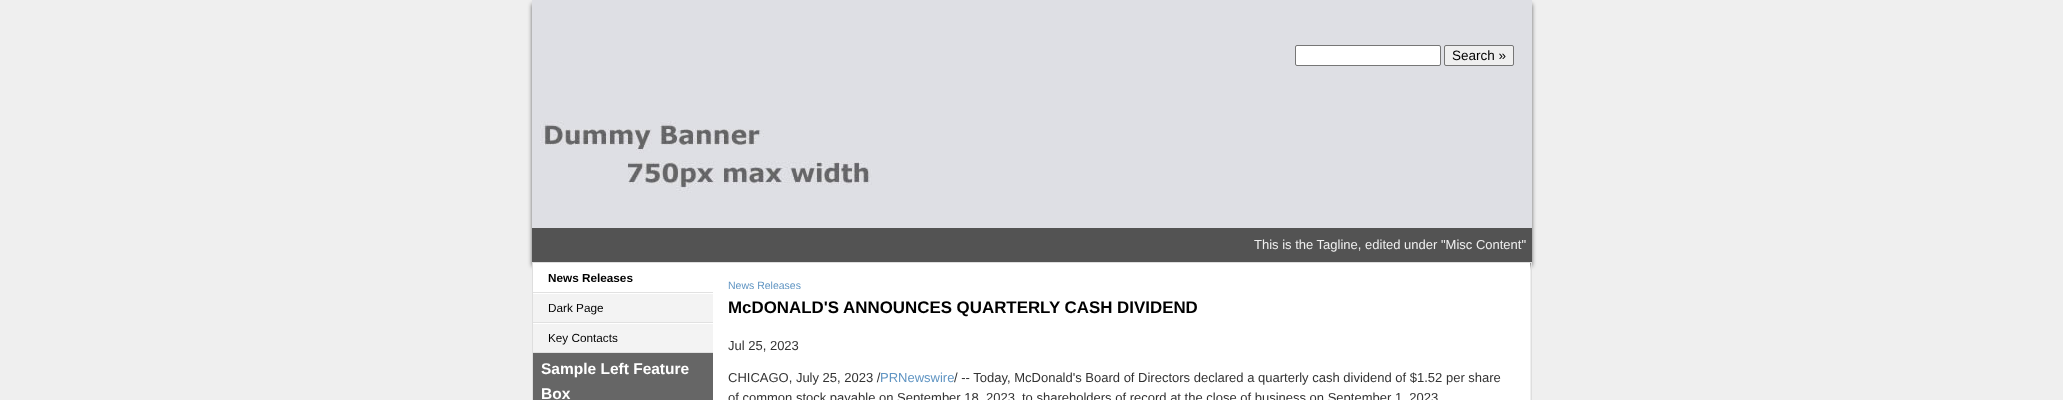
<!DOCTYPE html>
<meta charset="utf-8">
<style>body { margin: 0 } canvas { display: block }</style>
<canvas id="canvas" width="2063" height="400"></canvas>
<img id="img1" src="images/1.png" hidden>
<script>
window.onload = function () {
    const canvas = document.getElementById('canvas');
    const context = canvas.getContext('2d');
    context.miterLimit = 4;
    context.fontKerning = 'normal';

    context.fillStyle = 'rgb(239, 239, 239)';
    context.fillRect(0, 0, 2063, 400);
    context.fillStyle = 'rgb(102, 102, 102)';
    context.filter = 'blur(2px)';
    context.beginPath();
    context.rect(532, 4, 1000, 262);
    context.fill();
    context.filter = 'none';
    context.fillStyle = 'rgb(222, 223, 228)';
    context.fillRect(532, 0, 1000, 228);
    context.fillStyle = 'rgb(255, 255, 255)';
    context.beginPath();
    context.roundRect(1295.5, 45.5, 145, 20, 1.5);
    context.fill();
    context.strokeStyle = 'rgb(118, 118, 118)';
    context.stroke();
    context.fillStyle = 'rgb(239, 239, 239)';
    context.beginPath();
    context.roundRect(1444.5, 45.5, 69, 20, 1.5);
    context.fill();
    context.stroke();
    context.drawImage(document.getElementById('img1'), 540, 121, 332, 72);
    context.fillStyle = 'rgb(83, 83, 83)';
    context.fillRect(532, 228, 1000, 34);
    context.strokeStyle = 'rgb(222, 222, 222)';
    context.strokeRect(532.5, 262.5, 999, 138);
    context.fillStyle = 'rgb(243, 243, 243)';
    context.fillRect(533, 294, 180, 58);
    context.fillStyle = 'rgb(255, 255, 255)';
    context.fillRect(533, 263, 180, 29);
    context.fillStyle = 'rgb(225, 225, 225)';
    context.fillRect(533, 292, 180, 1);
    context.fillStyle = 'rgb(255, 255, 255)';
    context.fillRect(533, 293, 180, 1);
    context.fillStyle = 'rgb(225, 225, 225)';
    context.fillRect(533, 322, 180, 1);
    context.fillStyle = 'rgb(255, 255, 255)';
    context.fillRect(533, 323, 180, 1);
    context.fillStyle = 'rgb(225, 225, 225)';
    context.fillRect(533, 352, 180, 1);
    context.fillStyle = 'rgb(102, 102, 102)';
    context.fillRect(533, 353, 180, 47);
    context.fillStyle = 'rgb(255, 255, 255)';
    context.fillRect(713, 263, 817, 137);
    context.font = '13.5px Liberation Sans';
    context.fillStyle = 'rgb(0, 0, 0)';
    context.fillText('Search »', 1452, 60);
    context.font = '13px Liberation Sans';
    context.fillStyle = 'rgb(239, 239, 239)';
    context.fillText('This is the Tagline, edited under "Misc Content"', 1254, 249);
    context.font = 'bold 11.75px Liberation Sans';
    context.fillStyle = 'rgb(0, 0, 0)';
    context.fillText('News Releases', 548, 282);
    context.font = '11.75px Liberation Sans';
    context.fillText('Dark Page', 548, 312);
    context.fillText('Key Contacts', 548, 342);
    context.font = 'bold 15.5px Liberation Sans';
    context.fillStyle = 'rgb(255, 255, 255)';
    context.fillText('Sample Left Feature', 541, 374);
    context.fillText('Box', 541, 399);
    context.font = '10.5px Liberation Sans';
    context.fillStyle = 'rgb(96, 149, 195)';
    context.fillText('News Releases', 728, 289);
    context.font = 'bold 16.9px Liberation Sans';
    context.fillStyle = 'rgb(0, 0, 0)';
    context.fillText('McDONALD\'S ANNOUNCES QUARTERLY CASH DIVIDEND', 728, 313);
    context.font = '13px Liberation Sans';
    context.fillStyle = 'rgb(51, 51, 51)';
    context.fillText('Jul 25, 2023', 728, 350);
    context.fillText('CHICAGO, July 25, 2023 /', 728, 382);
    context.fillStyle = 'rgb(96, 149, 195)';
    context.fillText('PRNewswire', 880, 382);
    context.fillStyle = 'rgb(51, 51, 51)';
    context.fillText('/ -- Today, McDonald\'s Board of Directors declared a quarterly cash dividend of $1.52 per share', 954, 382);
    context.fillText('of common stock payable on September 18, 2023', 728, 402);
    context.fillText('to shareholders of record at the close of business on September 1, 2023', 1022, 402);
};
</script>
